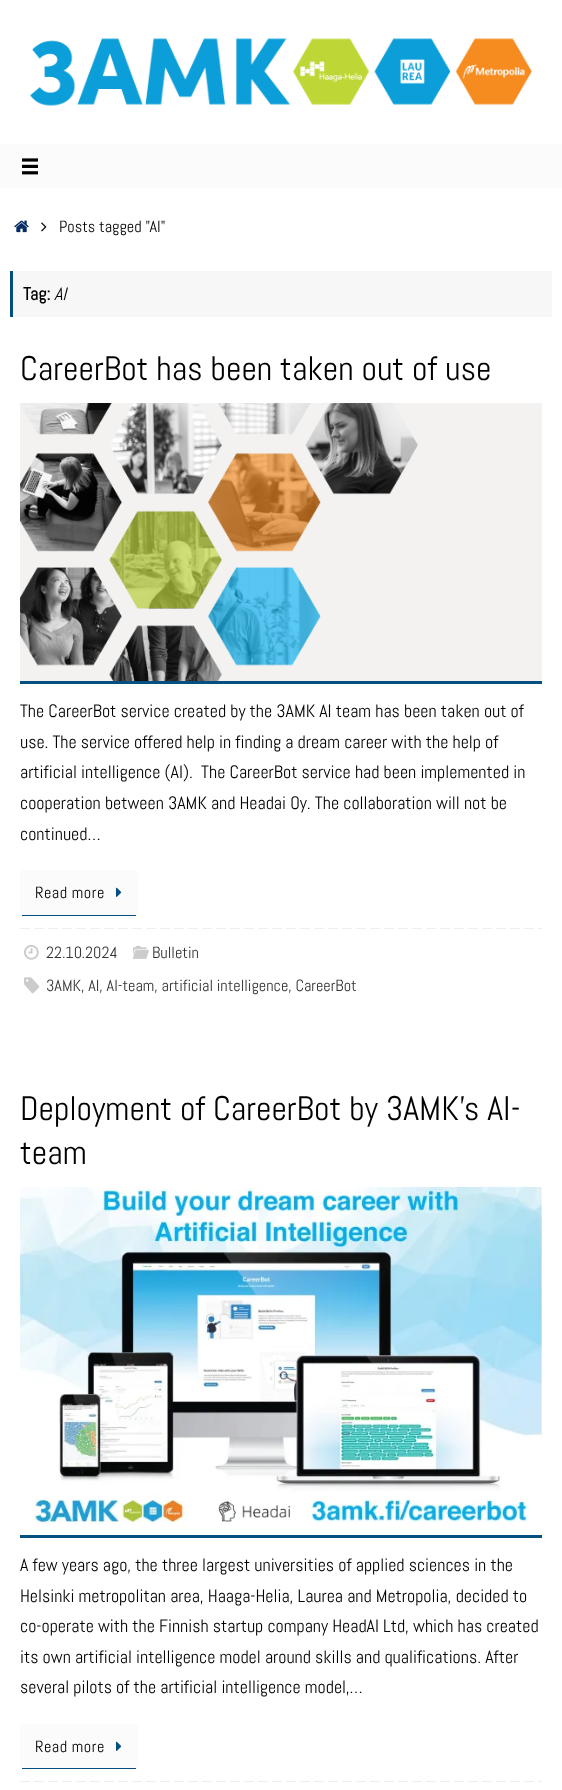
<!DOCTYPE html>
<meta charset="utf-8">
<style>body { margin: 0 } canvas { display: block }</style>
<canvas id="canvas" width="562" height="1790"></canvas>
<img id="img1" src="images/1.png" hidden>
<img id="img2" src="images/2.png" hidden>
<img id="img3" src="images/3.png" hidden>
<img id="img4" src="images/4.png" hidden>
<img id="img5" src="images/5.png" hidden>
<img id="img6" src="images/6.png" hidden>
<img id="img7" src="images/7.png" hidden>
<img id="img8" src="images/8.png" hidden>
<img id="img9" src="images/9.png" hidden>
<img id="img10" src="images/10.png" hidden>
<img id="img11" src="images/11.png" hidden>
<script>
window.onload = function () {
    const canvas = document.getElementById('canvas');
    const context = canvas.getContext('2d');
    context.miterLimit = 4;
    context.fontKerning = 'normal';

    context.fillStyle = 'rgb(255, 255, 255)';
    context.fillRect(0, 0, 562, 1790);
    context.drawImage(document.getElementById('img1'), 30, 38, 502, 68);
    context.fillStyle = 'rgb(251, 251, 251)';
    context.fillRect(0, 144, 562, 44);
    context.drawImage(document.getElementById('img2'), 22, 158, 16, 17);
    context.drawImage(document.getElementById('img3'), 14, 220, 15, 13);
    context.drawImage(document.getElementById('img4'), 41, 222, 6, 10);
    context.fillStyle = 'rgb(247, 247, 247)';
    context.fillRect(13, 271, 539, 46);
    context.fillStyle = 'rgb(1, 78, 127)';
    context.fillRect(10, 271, 3, 46);
    context.fillStyle = 'rgb(4, 80, 128)';
    context.fillRect(20, 681, 522, 3);
    context.drawImage(document.getElementById('img5'), 20, 403, 522, 278);
    context.fillStyle = 'rgb(251, 251, 251)';
    context.beginPath();
    context.roundRect(20, 870, 118, 46, 4);
    context.fill();
    context.fillStyle = 'rgb(1, 78, 127)';
    context.fillRect(22, 915, 114, 1);
    context.drawImage(document.getElementById('img6'), 116, 887, 6, 10);
    context.drawImage(document.getElementById('img7'), 20, 928, 522, 1);
    context.drawImage(document.getElementById('img8'), 24, 945, 15, 15);
    context.drawImage(document.getElementById('img9'), 133, 945, 16, 14);
    context.drawImage(document.getElementById('img10'), 24, 977, 16, 17);
    context.fillStyle = 'rgb(4, 80, 128)';
    context.fillRect(20, 1535, 522, 3);
    context.drawImage(document.getElementById('img11'), 20, 1187, 522, 339);
    context.fillStyle = 'rgb(251, 251, 251)';
    context.beginPath();
    context.roundRect(20, 1724, 118, 45, 4);
    context.fill();
    context.fillStyle = 'rgb(1, 78, 127)';
    context.fillRect(22, 1768, 114, 1);
    context.drawImage(document.getElementById('img6'), 116, 1741, 6, 10);
    context.drawImage(document.getElementById('img7'), 20, 1781, 522, 1);
    context.font = '16.25px Abel';
    context.fillStyle = 'rgb(0, 0, 0)';
    context.fillText('Posts tagged "AI"', 59, 232);
    context.font = 'bold 18px Abel';
    context.fillText('Tag:', 23, 300);
    context.font = 'italic 18px Abel';
    context.fillText('AI', 54, 300);
    context.font = '34px Abel';
    context.fillText('CareerBot has been taken out of use', 20, 380);
    context.font = '18px Abel';
    context.fillText('The CareerBot service created by the 3AMK AI team has been taken out of', 20, 717);
    context.fillText('use. The service offered help in finding a dream career with the help of', 20, 748);
    context.fillText('artificial intelligence (AI).  The CareerBot service had been implemented in', 20, 778);
    context.fillText('cooperation between 3AMK and Headai Oy. The collaboration will not be', 20, 809);
    context.fillText('continued…', 20, 840);
    context.letterSpacing = '0.5px';
    context.font = '16.25px Abel';
    context.fillText('Read more', 35, 898);
    context.letterSpacing = '0px';
    context.fillStyle = 'rgb(51, 51, 51)';
    context.fillText('22.10.2024', 46, 958);
    context.fillText('Bulletin', 152, 958);
    context.fillText('3AMK, AI, AI-team, artificial intelligence, CareerBot', 46, 991);
    context.font = '34px Abel';
    context.fillStyle = 'rgb(0, 0, 0)';
    context.fillText('Deployment of CareerBot by 3AMK’s AI-', 20, 1120);
    context.fillText('team', 20, 1164);
    context.font = '18px Abel';
    context.fillText('A few years ago, the three largest universities of applied sciences in the', 20, 1571);
    context.fillText('Helsinki metropolitan area, Haaga-Helia, Laurea and Metropolia, decided to', 20, 1602);
    context.fillText('co-operate with the Finnish startup company HeadAI Ltd, which has created', 20, 1632);
    context.fillText('its own artificial intelligence model around skills and qualifications. After', 20, 1663);
    context.fillText('several pilots of the artificial intelligence model,…', 20, 1693);
    context.letterSpacing = '0.5px';
    context.font = '16.25px Abel';
    context.fillText('Read more', 35, 1752);
};
</script>
